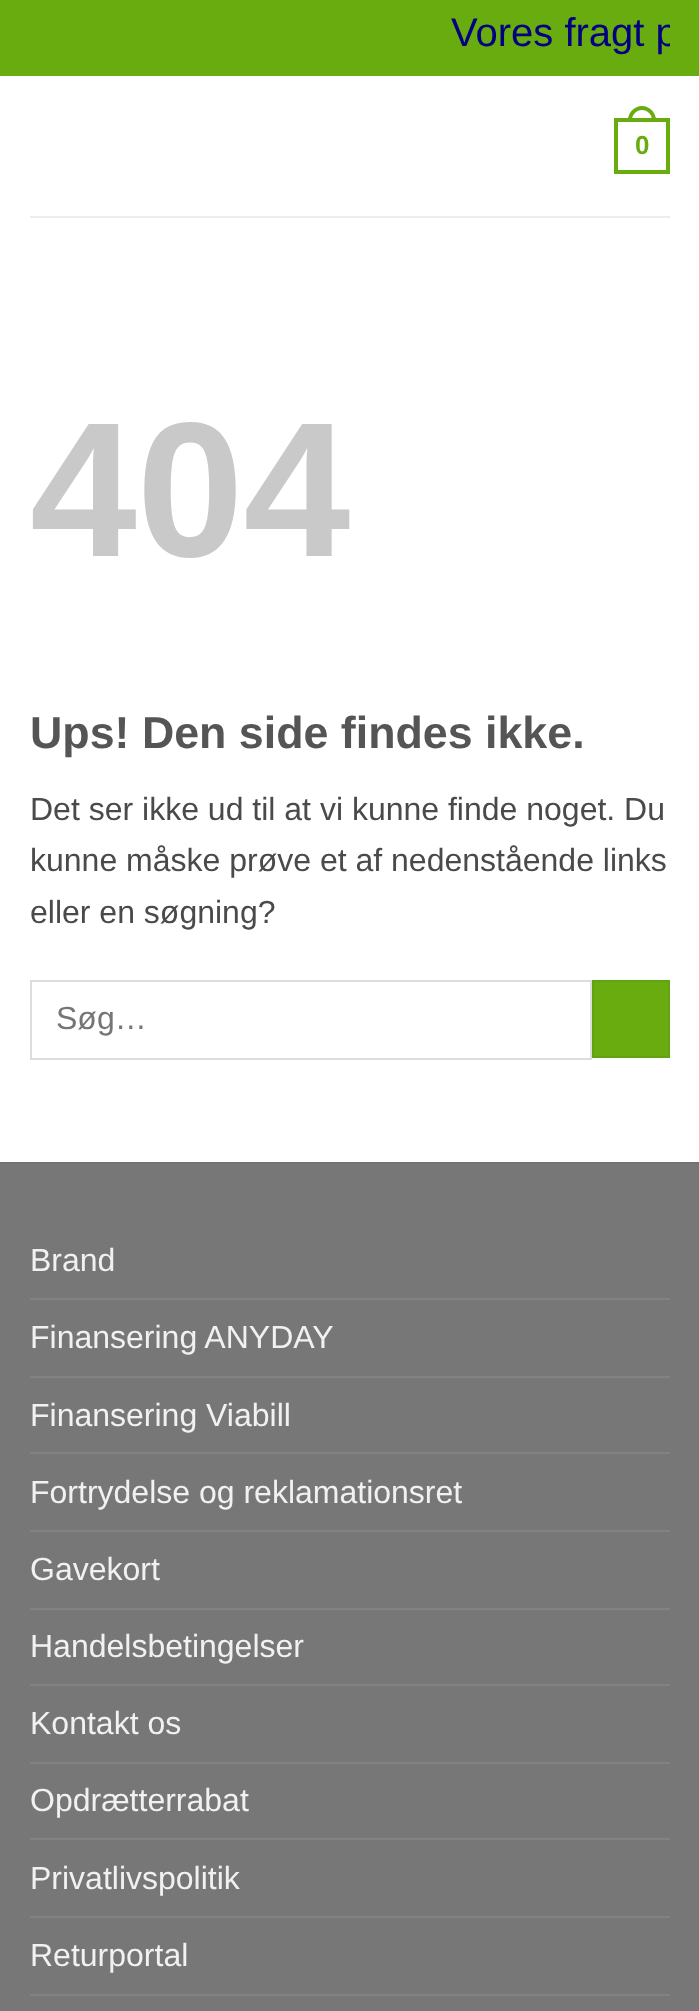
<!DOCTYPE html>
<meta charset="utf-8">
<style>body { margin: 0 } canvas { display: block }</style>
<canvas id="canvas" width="699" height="2011"></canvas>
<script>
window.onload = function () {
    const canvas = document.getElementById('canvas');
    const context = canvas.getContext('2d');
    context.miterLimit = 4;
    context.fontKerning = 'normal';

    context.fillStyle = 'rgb(255, 255, 255)';
    context.fillRect(0, 0, 699, 2011);
    context.fillStyle = 'rgb(104, 172, 16)';
    context.fillRect(0, 0, 699, 76);
    context.strokeStyle = 'rgb(104, 172, 16)';
    context.lineWidth = 4;
    context.strokeRect(616, 120, 52, 52);
    context.beginPath();
    context.moveTo(642, 106);
    context.bezierCurveTo(649.5, 106, 656, 112.5, 656, 120);
    context.lineTo(656, 122);
    context.lineTo(628, 122);
    context.lineTo(628, 120);
    context.bezierCurveTo(628, 112.5, 634.5, 106, 642, 106);
    context.closePath();
    context.moveTo(642, 110);
    context.bezierCurveTo(647.5, 110, 652, 114.5, 652, 120);
    context.lineTo(652, 122);
    context.lineTo(632, 122);
    context.lineTo(632, 120);
    context.bezierCurveTo(632, 114.5, 636.5, 110, 642, 110);
    context.closePath();
    context.fill('evenodd');
    context.fillStyle = 'rgb(237, 237, 237)';
    context.fillRect(30, 216, 640, 2);
    context.strokeStyle = 'rgb(221, 221, 221)';
    context.lineWidth = 2;
    context.strokeRect(31, 981, 560, 78);
    context.fillStyle = 'rgb(104, 172, 16)';
    context.beginPath();
    context.rect(593, 981, 76, 76);
    context.fill();
    context.strokeStyle = 'rgb(99, 163, 15)';
    context.stroke();
    context.fillStyle = 'rgb(119, 119, 119)';
    context.fillRect(0, 1164, 699, 847);
    context.fillStyle = 'rgb(113, 113, 113)';
    context.fillRect(0, 1162, 699, 2);
    context.fillStyle = 'rgb(130, 130, 130)';
    context.fillRect(30, 1298, 640, 2);
    context.fillRect(30, 1376, 640, 2);
    context.fillRect(30, 1452, 640, 2);
    context.fillRect(30, 1530, 640, 2);
    context.fillRect(30, 1608, 640, 2);
    context.fillRect(30, 1684, 640, 2);
    context.fillRect(30, 1762, 640, 2);
    context.fillRect(30, 1838, 640, 2);
    context.fillRect(30, 1916, 640, 2);
    context.fillRect(30, 1994, 640, 2);
    context.save();
    context.beginPath();
    context.rect(30, 0, 640, 64);
    context.clip();
    context.font = '40px Liberation Sans';
    context.fillStyle = 'rgb(0, 0, 128)';
    context.fillText('Vores fragt p', 451, 46);
    context.restore();
    context.font = 'bold 26px Liberation Sans';
    context.fillStyle = 'rgb(104, 172, 16)';
    context.fillText('0', 635, 154);
    context.font = 'bold 192px Liberation Sans';
    context.fillStyle = 'rgb(201, 201, 201)';
    context.fillText('404', 30, 556);
    context.font = 'bold 44.75px Liberation Sans';
    context.fillStyle = 'rgb(85, 85, 85)';
    context.fillText('Ups! Den side findes ikke.', 30, 748);
    context.font = '32px Liberation Sans';
    context.fillStyle = 'rgb(74, 74, 74)';
    context.fillText('Det ser ikke ud til at vi kunne finde noget. Du', 30, 820);
    context.fillText('kunne måske prøve et af nedenstående links', 30, 871);
    context.fillText('eller en søgning?', 30, 923);
    context.fillStyle = 'rgb(117, 117, 117)';
    context.fillText('Søg…', 56, 1029);
    context.fillStyle = 'rgb(241, 241, 241)';
    context.fillText('Brand', 30, 1271);
    context.fillText('Finansering ANYDAY', 30, 1348);
    context.fillText('Finansering Viabill', 30, 1426);
    context.fillText('Fortrydelse og reklamationsret', 30, 1503);
    context.fillText('Gavekort', 30, 1580);
    context.fillText('Handelsbetingelser', 30, 1657);
    context.fillText('Kontakt os', 30, 1734);
    context.fillText('Opdrætterrabat', 30, 1811);
    context.fillText('Privatlivspolitik', 30, 1889);
    context.fillText('Returportal', 30, 1966);
};
</script>
